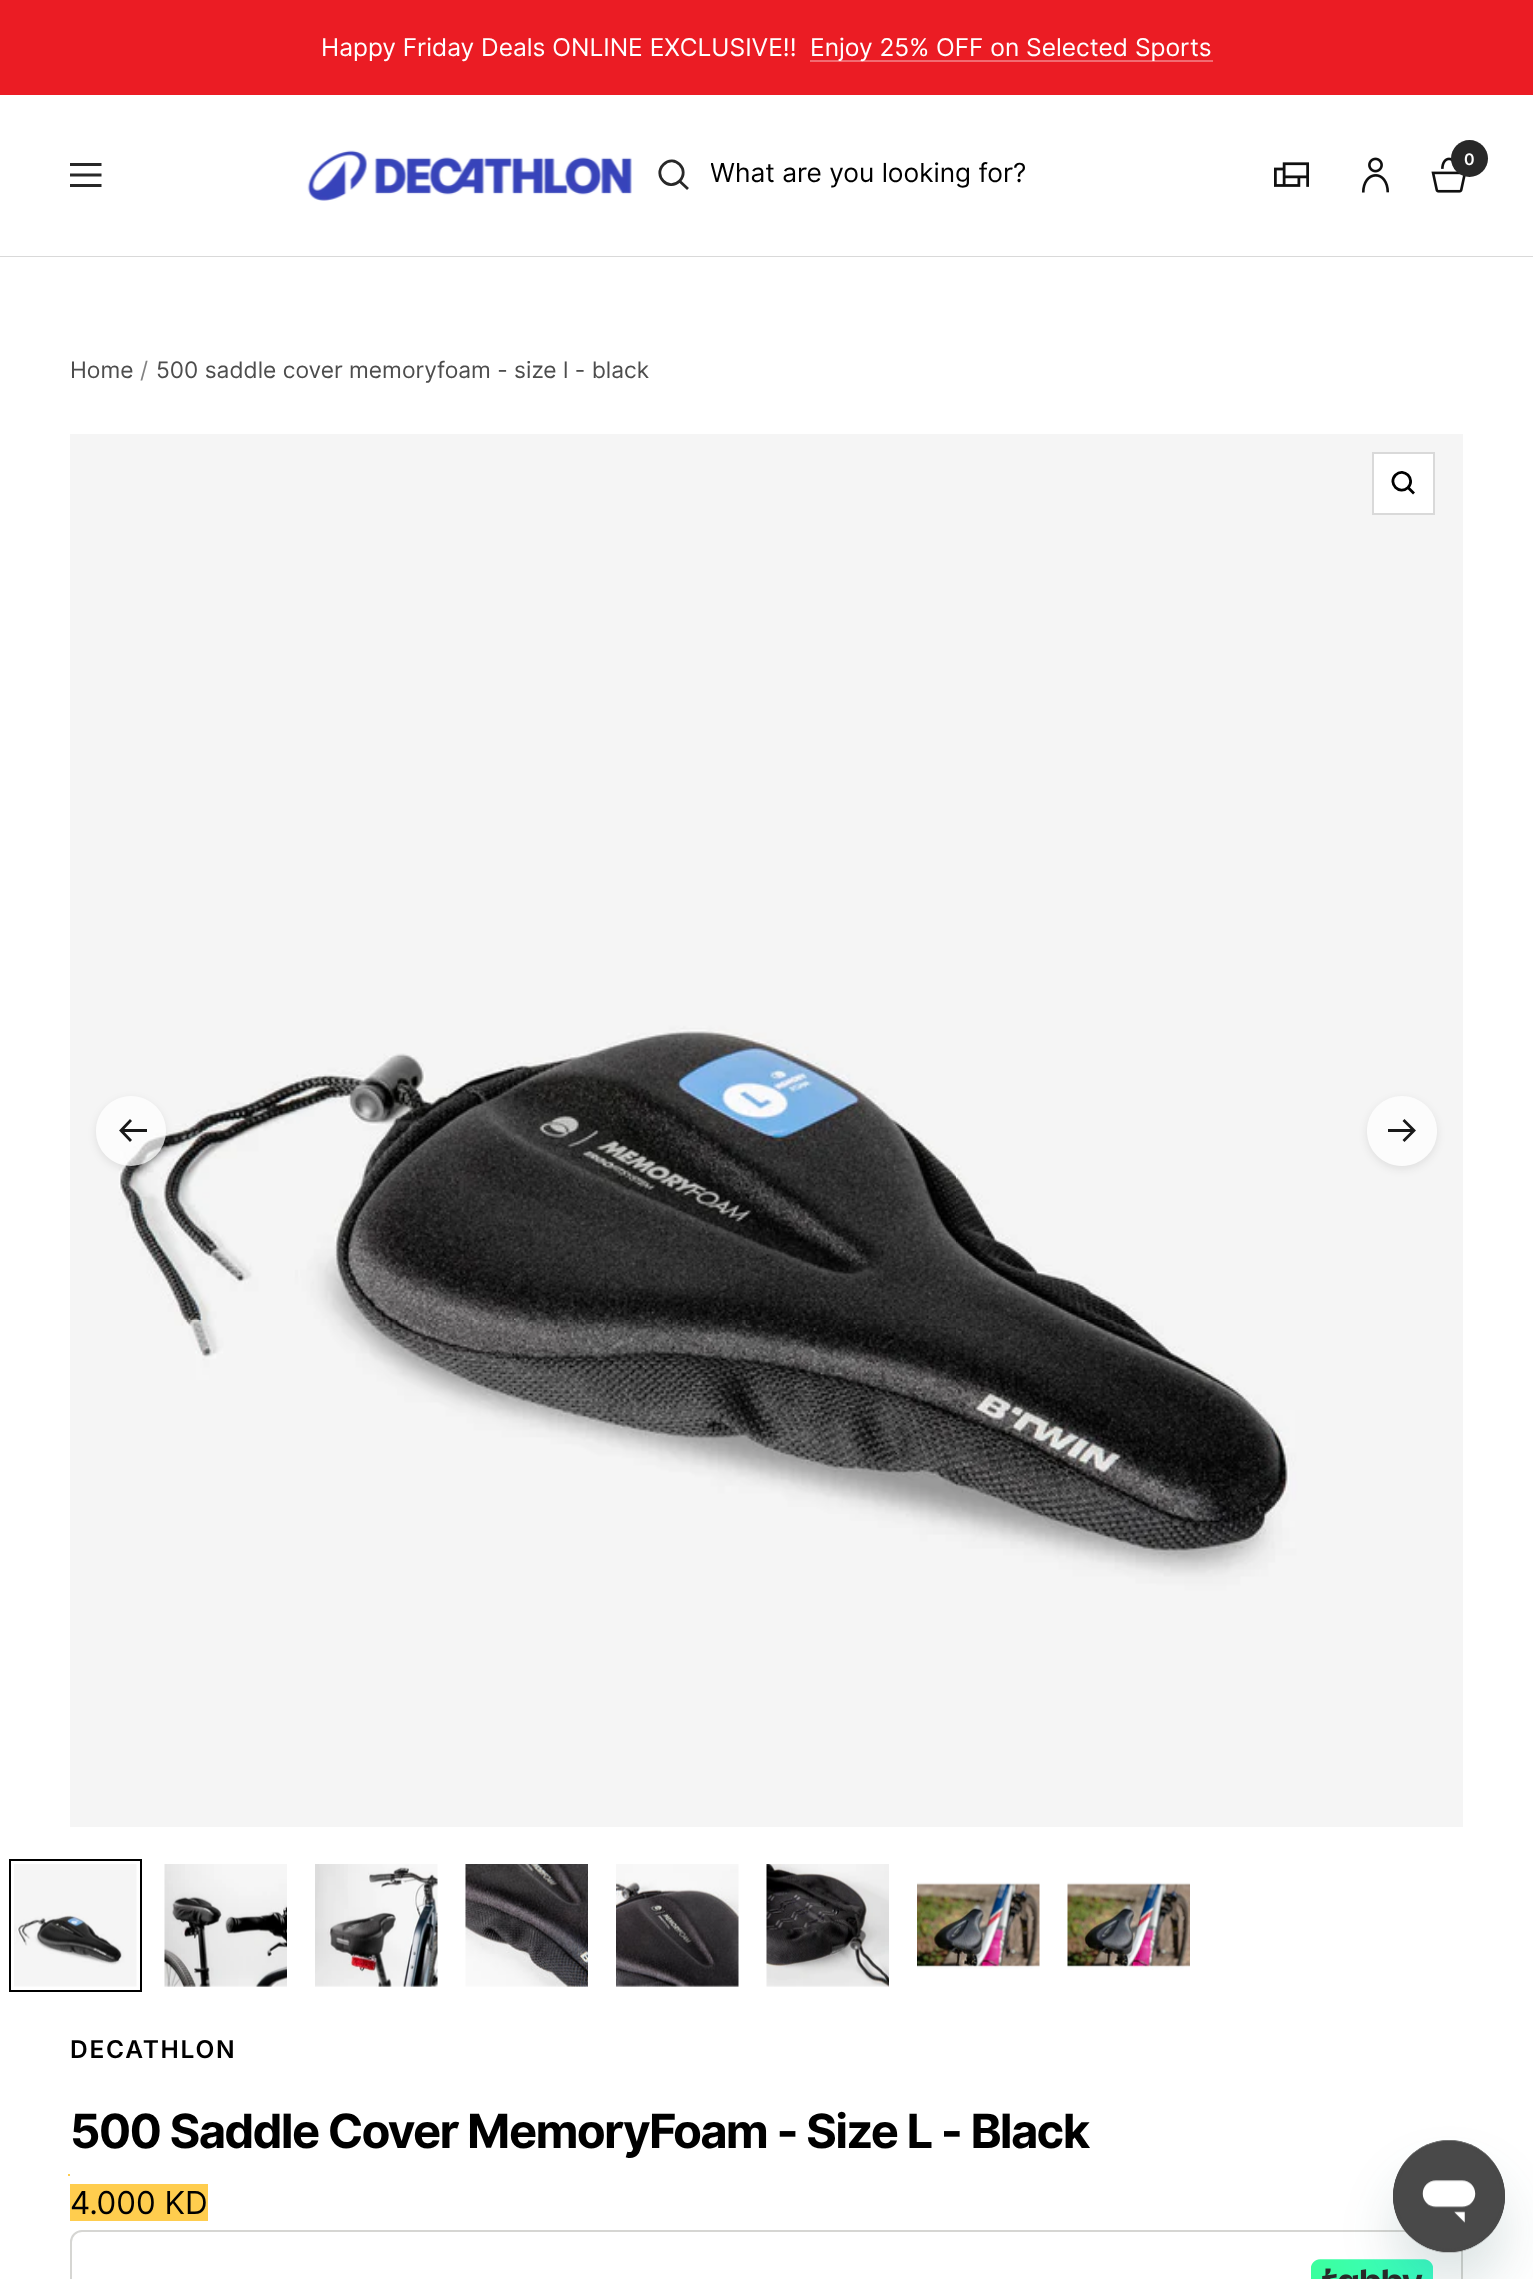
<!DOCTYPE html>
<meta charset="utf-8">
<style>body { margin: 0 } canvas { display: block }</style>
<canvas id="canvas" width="1533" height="2279"></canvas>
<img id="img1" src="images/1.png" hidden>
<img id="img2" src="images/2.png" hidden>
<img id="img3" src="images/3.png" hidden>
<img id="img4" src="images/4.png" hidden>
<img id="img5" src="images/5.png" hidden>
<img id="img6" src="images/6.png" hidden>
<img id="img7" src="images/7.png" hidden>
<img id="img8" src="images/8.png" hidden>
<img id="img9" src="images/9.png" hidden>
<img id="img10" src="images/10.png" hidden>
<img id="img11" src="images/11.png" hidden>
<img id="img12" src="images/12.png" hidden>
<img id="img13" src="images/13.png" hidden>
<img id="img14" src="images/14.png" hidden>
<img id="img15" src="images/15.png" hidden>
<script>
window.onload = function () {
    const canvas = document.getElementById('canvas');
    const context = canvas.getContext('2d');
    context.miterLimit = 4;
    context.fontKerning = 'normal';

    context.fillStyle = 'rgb(255, 255, 255)';
    context.fillRect(0, 0, 1533, 2279);
    context.fillStyle = 'rgb(235, 28, 36)';
    context.fillRect(0, 0, 1533, 95);
    context.fillStyle = 'rgb(242, 107, 113)';
    context.fillRect(810, 60, 403, 2);
    context.fillStyle = 'rgb(217, 217, 217)';
    context.fillRect(0, 256, 1533, 1);
    context.drawImage(document.getElementById('img1'), 307, 150, 325, 51);
    context.drawImage(document.getElementById('img2'), 1274, 162, 35, 25);
    context.drawImage(document.getElementById('img3'), 1361, 157, 28, 36);
    context.drawImage(document.getElementById('img4'), 1431, 157, 35, 36);
    context.fillStyle = 'rgb(40, 40, 40)';
    context.beginPath();
    context.arc(1469.5, 158.5, 18.5, 0, 2 * Math.PI);
    context.fill();
    context.beginPath();
    context.moveTo(70, 164.5);
    context.lineTo(101.5, 164.5);
    context.moveTo(70, 185.5);
    context.lineTo(101.5, 185.5);
    context.closePath();
    context.moveTo(70, 175);
    context.lineTo(101.5, 175);
    context.closePath();
    context.strokeStyle = 'rgb(40, 40, 40)';
    context.lineWidth = 2.8;
    context.stroke();
    context.beginPath();
    context.moveTo(679.5, 181);
    context.bezierCurveTo(690.5, 170, 674.5, 153.5, 663.5, 164.5);
    context.bezierCurveTo(652.5, 175.5, 668.5, 192, 679.5, 181);
    context.closePath();
    context.moveTo(679.5, 181);
    context.lineTo(688, 189);
    context.stroke();
    context.drawImage(document.getElementById('img5'), 70, 434, 1393, 1393);
    context.fillStyle = 'rgb(255, 255, 255)';
    context.beginPath();
    context.rect(1373, 453, 61, 61);
    context.fill();
    context.strokeStyle = 'rgb(217, 217, 217)';
    context.lineWidth = 2;
    context.stroke();
    context.beginPath();
    context.moveTo(1408, 487.5);
    context.bezierCurveTo(1416, 479, 1404, 467, 1395.5, 475);
    context.bezierCurveTo(1387.5, 483.5, 1399.5, 495.5, 1408, 487.5);
    context.closePath();
    context.moveTo(1408, 487.5);
    context.lineTo(1414, 493.5);
    context.strokeStyle = 'rgb(0, 0, 0)';
    context.lineWidth = 2.8;
    context.stroke();
    context.save();
    context.beginPath();
    context.moveTo(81, 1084);
    context.lineTo(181, 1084);
    context.lineTo(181, 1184);
    context.lineTo(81, 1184);
    context.closePath();
    context.moveTo(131, 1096);
    context.bezierCurveTo(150.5, 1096, 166, 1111.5, 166, 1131);
    context.bezierCurveTo(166, 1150.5, 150.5, 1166, 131, 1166);
    context.bezierCurveTo(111.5, 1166, 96, 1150.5, 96, 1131);
    context.bezierCurveTo(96, 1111.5, 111.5, 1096, 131, 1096);
    context.closePath();
    context.clip('evenodd');
    context.fillStyle = 'rgba(0, 0, 0, 0.09)';
    context.filter = 'blur(4.5px)';
    context.beginPath();
    context.roundRect(96, 1099, 70, 70, 35);
    context.fill();
    context.filter = 'none';
    context.restore();
    context.fillStyle = 'rgba(255, 255, 255, 0.72)';
    context.beginPath();
    context.arc(131, 1131, 35, 0, 2 * Math.PI);
    context.fill();
    context.beginPath();
    context.moveTo(147, 1130.5);
    context.lineTo(121, 1130.5);
    context.moveTo(131, 1120);
    context.lineTo(121, 1130.5);
    context.lineTo(131, 1141);
    context.strokeStyle = 'rgb(24, 24, 24)';
    context.stroke();
    context.save();
    context.beginPath();
    context.moveTo(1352, 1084);
    context.lineTo(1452, 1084);
    context.lineTo(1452, 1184);
    context.lineTo(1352, 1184);
    context.closePath();
    context.moveTo(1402, 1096);
    context.bezierCurveTo(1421.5, 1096, 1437, 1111.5, 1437, 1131);
    context.bezierCurveTo(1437, 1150.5, 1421.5, 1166, 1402, 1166);
    context.bezierCurveTo(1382.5, 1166, 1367, 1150.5, 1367, 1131);
    context.bezierCurveTo(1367, 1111.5, 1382.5, 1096, 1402, 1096);
    context.closePath();
    context.clip('evenodd');
    context.fillStyle = 'rgba(25, 25, 25, 0.1)';
    context.filter = 'blur(4.5px)';
    context.beginPath();
    context.roundRect(1367, 1099, 70, 70, 35);
    context.fill();
    context.filter = 'none';
    context.restore();
    context.fillStyle = 'rgba(254, 254, 254, 0.8)';
    context.beginPath();
    context.arc(1402, 1131, 35, 0, 2 * Math.PI);
    context.fill();
    context.beginPath();
    context.moveTo(1388, 1130.5);
    context.lineTo(1414, 1130.5);
    context.moveTo(1403.5, 1120);
    context.lineTo(1414, 1130.5);
    context.lineTo(1403.5, 1141);
    context.strokeStyle = 'rgb(25, 25, 25)';
    context.stroke();
    context.strokeStyle = 'rgb(0, 0, 0)';
    context.lineWidth = 2;
    context.strokeRect(10, 1860, 131, 131);
    context.drawImage(document.getElementById('img6'), 14, 1864, 123, 123);
    context.drawImage(document.getElementById('img7'), 164, 1864, 123, 123);
    context.drawImage(document.getElementById('img8'), 315, 1864, 123, 123);
    context.drawImage(document.getElementById('img9'), 465, 1864, 123, 123);
    context.drawImage(document.getElementById('img10'), 616, 1864, 123, 123);
    context.drawImage(document.getElementById('img11'), 766, 1864, 123, 123);
    context.drawImage(document.getElementById('img12'), 917, 1882, 123, 87);
    context.drawImage(document.getElementById('img13'), 1067, 1882, 123, 88);
    context.fillStyle = 'rgb(255, 205, 78)';
    context.fillRect(68, 2174, 2, 2);
    context.fillRect(70, 2184, 138, 37);
    context.beginPath();
    context.roundRect(71, 2231, 1391, 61, 11);
    context.strokeStyle = 'rgb(214, 214, 211)';
    context.stroke();
    context.drawImage(document.getElementById('img14'), 1311, 2259, 122, 20);
    context.fillStyle = 'rgba(23, 73, 77, 0.15)';
    context.filter = 'blur(26px)';
    context.beginPath();
    context.roundRect(1393, 2175, 112, 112, 56);
    context.fill();
    context.filter = 'none';
    context.drawImage(document.getElementById('img15'), 1393, 2140, 112, 113);
    context.font = '24.5px Inter';
    context.fillStyle = 'rgb(255, 255, 255)';
    context.fillText('Happy Friday Deals ONLINE EXCLUSIVE!!', 321, 56);
    context.fillText('Enjoy 25% OFF on Selected Sports', 810, 56);
    context.font = '600 16px Inter';
    context.fillText('0', 1464, 165);
    context.save();
    context.beginPath();
    context.rect(711, 158, 525, 31);
    context.clip();
    context.font = '26.25px Inter';
    context.fillStyle = 'rgb(0, 0, 0)';
    context.fillText('What are you looking for?', 710, 182);
    context.restore();
    context.font = '22.75px Inter';
    context.fillStyle = 'rgb(77, 77, 77)';
    context.fillText('Home', 70, 378);
    context.fillStyle = 'rgb(130, 130, 130)';
    context.fillText('/', 140, 378);
    context.fillStyle = 'rgb(77, 77, 77)';
    context.fillText('500 saddle cover memoryfoam - size l - black', 156, 378);
    context.letterSpacing = '1.75px';
    context.font = '600 24.5px Inter';
    context.fillStyle = 'rgb(0, 0, 0)';
    context.fillText('DECATHLON', 70, 2058);
    context.letterSpacing = '-1.75px';
    context.font = 'bold 47.25px Inter';
    context.fillText('500 Saddle Cover MemoryFoam - Size L - Black', 70, 2148);
    context.letterSpacing = '0px';
    context.font = '31.5px Inter';
    context.fillText('4.000 KD', 70, 2214);
};
</script>
